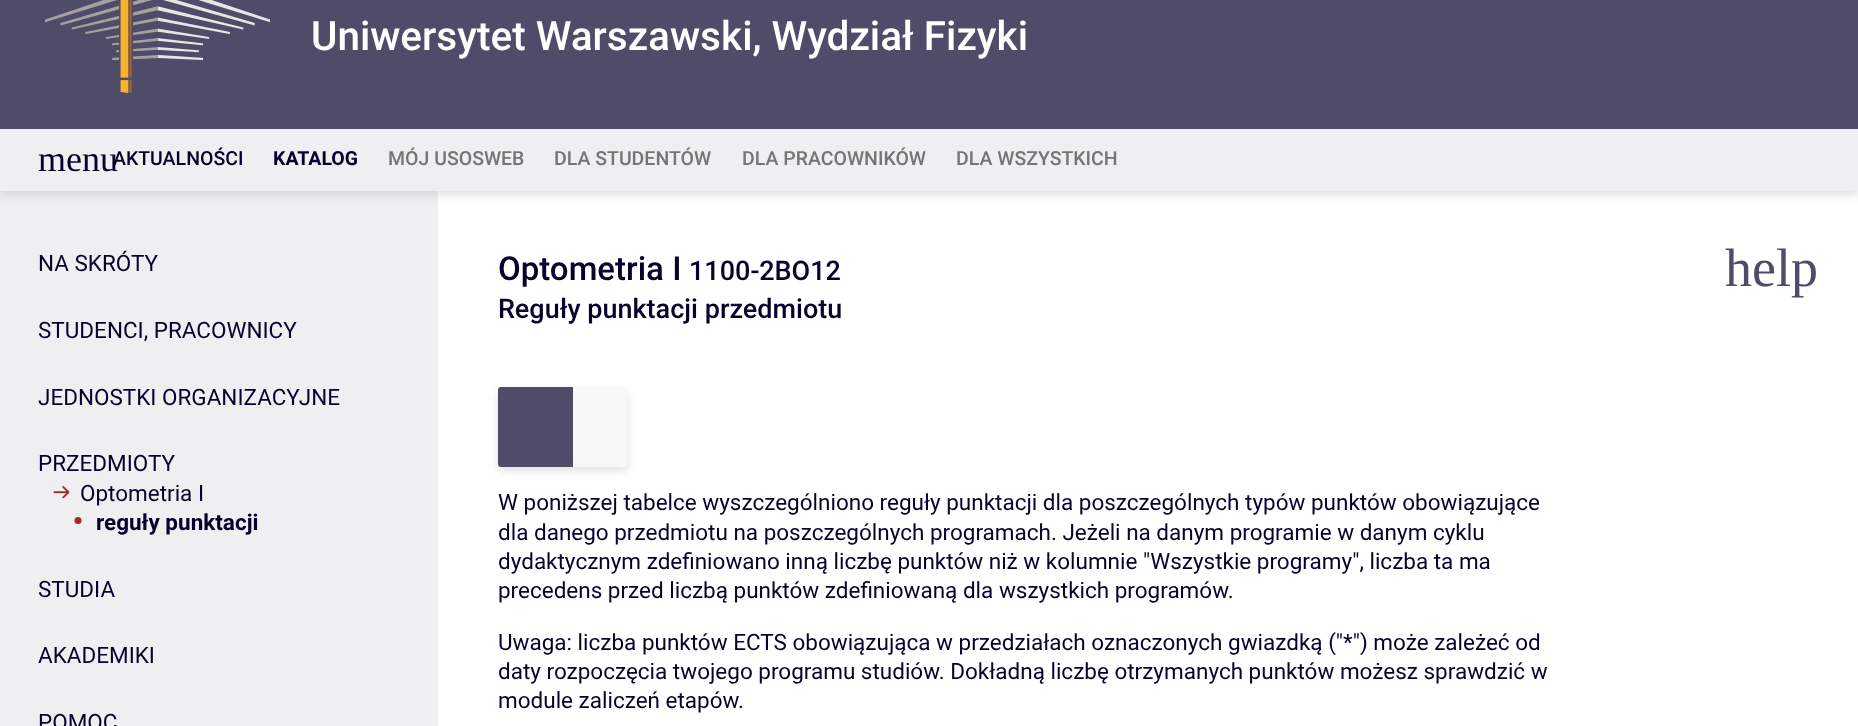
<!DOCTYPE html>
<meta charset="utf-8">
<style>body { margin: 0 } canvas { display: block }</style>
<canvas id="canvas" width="1858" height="726"></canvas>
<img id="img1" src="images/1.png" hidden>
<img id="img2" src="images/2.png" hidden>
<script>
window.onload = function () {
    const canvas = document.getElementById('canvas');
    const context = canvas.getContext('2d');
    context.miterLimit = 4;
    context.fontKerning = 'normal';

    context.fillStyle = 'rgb(79, 76, 106)';
    context.fillRect(0, 0, 1858, 726);
    context.drawImage(document.getElementById('img1'), 45, 0, 225, 93);
    context.fillStyle = 'rgb(255, 255, 255)';
    context.fillRect(438, 191, 1420, 535);
    context.fillStyle = 'rgb(239, 239, 241)';
    context.fillRect(0, 191, 438, 535);
    context.fillStyle = 'rgba(6, 6, 51, 0.12)';
    context.filter = 'blur(4.5px)';
    context.beginPath();
    context.rect(0, 134, 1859, 61);
    context.fill();
    context.filter = 'none';
    context.fillStyle = 'rgb(239, 239, 241)';
    context.fillRect(0, 129, 1858, 62);
    context.drawImage(document.getElementById('img2'), 53, 486, 17, 13);
    context.fillStyle = 'rgb(166, 41, 41)';
    context.beginPath();
    context.arc(78, 520.5, 3.5, 0, 2 * Math.PI);
    context.fill();
    context.fillStyle = 'rgba(6, 6, 51, 0.12)';
    context.filter = 'blur(4.5px)';
    context.beginPath();
    context.roundRect(498, 392, 129, 79, 3);
    context.fill();
    context.filter = 'none';
    context.fillStyle = 'rgb(79, 76, 106)';
    context.beginPath();
    context.roundRect(498, 387, 75, 80, [3, 0, 0, 3]);
    context.fill();
    context.fillStyle = 'rgb(248, 248, 248)';
    context.beginPath();
    context.roundRect(573, 387, 54, 80, [0, 3, 3, 0]);
    context.fill();
    context.font = '500 40.5px Roboto';
    context.fillStyle = 'rgb(255, 255, 255)';
    context.fillText('Uniwersytet Warszawski, Wydział Fizyki', 311, 50);
    context.font = '36px Liberation Serif';
    context.fillStyle = 'rgb(6, 2, 46)';
    context.fillText('menu', 38, 171);
    context.font = '500 19.5px Roboto';
    context.fillText('AKTUALNOŚCI', 113, 165);
    context.font = 'bold 19.5px Roboto';
    context.fillText('KATALOG', 273, 165);
    context.font = '500 19.5px Roboto';
    context.fillStyle = 'rgb(117, 117, 117)';
    context.fillText('MÓJ USOSWEB', 388, 165);
    context.fillText('DLA STUDENTÓW', 554, 165);
    context.fillText('DLA PRACOWNIKÓW', 742, 165);
    context.fillText('DLA WSZYSTKICH', 956, 165);
    context.font = '22.5px Roboto';
    context.fillStyle = 'rgb(6, 2, 46)';
    context.fillText('NA SKRÓTY', 38, 271);
    context.fillText('STUDENCI, PRACOWNICY', 38, 338);
    context.fillText('JEDNOSTKI ORGANIZACYJNE', 38, 405);
    context.fillText('PRZEDMIOTY', 38, 471);
    context.fillText('Optometria I', 80, 501);
    context.font = 'bold 22.5px Roboto';
    context.fillText('reguły punktacji', 96, 530);
    context.font = '22.5px Roboto';
    context.fillText('STUDIA', 38, 597);
    context.fillText('AKADEMIKI', 38, 663);
    context.fillText('POMOC', 38, 730);
    context.font = '500 33px Roboto';
    context.fillText('Optometria I', 498, 280);
    context.font = '500 27px Roboto';
    context.fillText('1100-2BO12', 689, 280);
    context.fillText('Reguły punktacji przedmiotu', 498, 318);
    context.font = '54px Liberation Serif';
    context.fillStyle = 'rgb(79, 76, 106)';
    context.fillText('help', 1725, 286);
    context.font = '22.5px Roboto';
    context.fillStyle = 'rgb(6, 2, 46)';
    context.fillText('W poniższej tabelce wyszczególniono reguły punktacji dla poszczególnych typów punktów obowiązujące', 498, 510);
    context.fillText('dla danego przedmiotu na poszczególnych programach. Jeżeli na danym programie w danym cyklu', 498, 540);
    context.fillText('dydaktycznym zdefiniowano inną liczbę punktów niż w kolumnie "Wszystkie programy", liczba ta ma', 498, 569);
    context.fillText('precedens przed liczbą punktów zdefiniowaną dla wszystkich programów.', 498, 598);
    context.fillText('Uwaga: liczba punktów ECTS obowiązująca w przedziałach oznaczonych gwiazdką ("*") może zależeć od', 498, 650);
    context.fillText('daty rozpoczęcia twojego programu studiów. Dokładną liczbę otrzymanych punktów możesz sprawdzić w', 498, 679);
    context.fillText('module zaliczeń etapów.', 498, 708);
};
</script>
